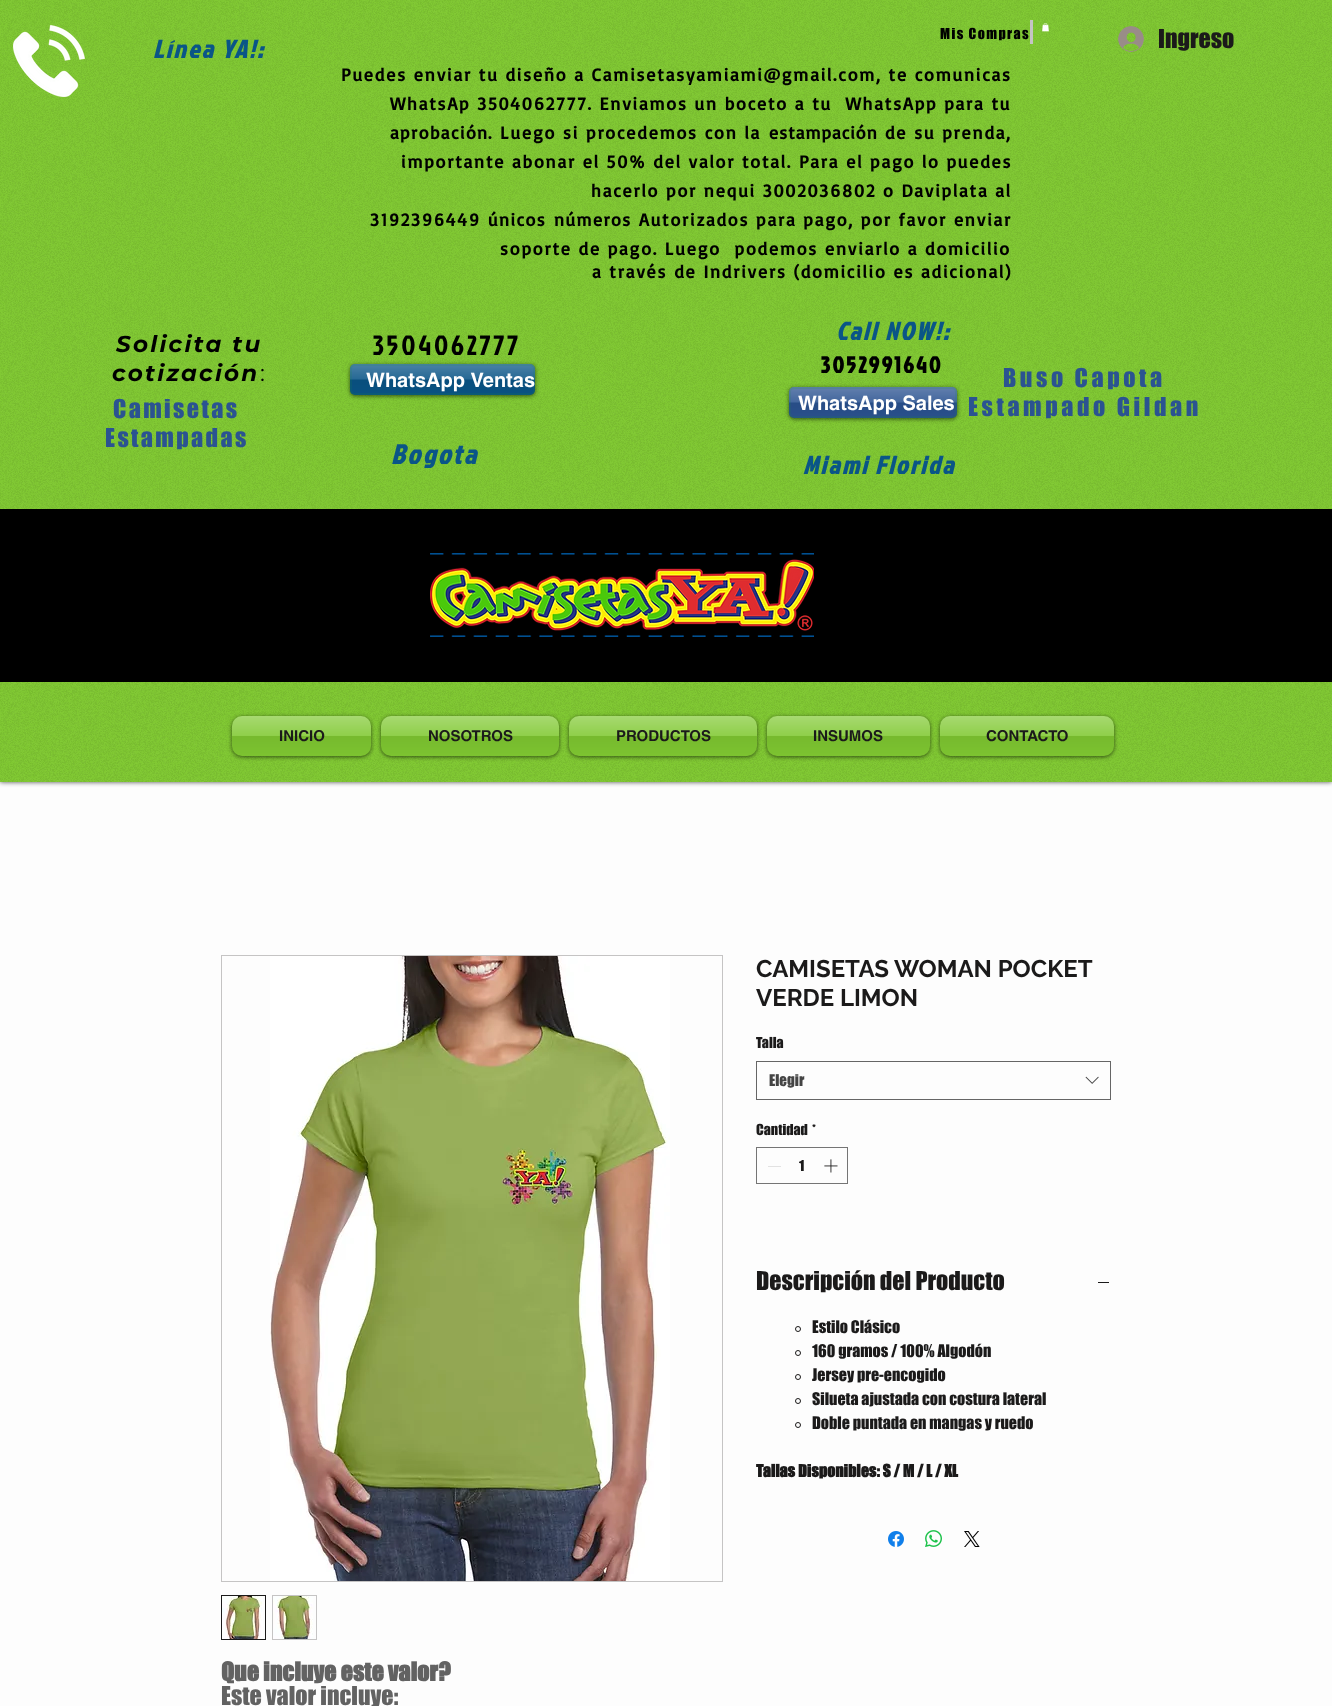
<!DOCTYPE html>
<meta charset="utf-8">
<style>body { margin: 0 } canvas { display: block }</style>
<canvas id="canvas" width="1332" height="1706"></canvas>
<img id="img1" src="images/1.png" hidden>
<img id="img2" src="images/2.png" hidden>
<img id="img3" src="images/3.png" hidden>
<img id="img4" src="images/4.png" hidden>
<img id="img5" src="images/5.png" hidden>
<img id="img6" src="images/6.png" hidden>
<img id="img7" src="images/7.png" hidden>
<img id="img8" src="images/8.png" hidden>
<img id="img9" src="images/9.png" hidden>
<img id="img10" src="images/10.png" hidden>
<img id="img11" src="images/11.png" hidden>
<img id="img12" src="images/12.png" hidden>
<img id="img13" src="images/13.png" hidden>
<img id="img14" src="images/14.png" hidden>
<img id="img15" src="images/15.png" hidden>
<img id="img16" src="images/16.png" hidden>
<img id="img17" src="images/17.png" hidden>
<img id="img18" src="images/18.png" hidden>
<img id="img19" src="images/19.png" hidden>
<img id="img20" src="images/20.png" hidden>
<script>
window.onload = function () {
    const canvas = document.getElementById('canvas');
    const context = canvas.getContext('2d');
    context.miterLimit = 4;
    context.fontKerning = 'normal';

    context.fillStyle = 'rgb(253, 253, 253)';
    context.fillRect(0, 0, 1332, 1706);
    context.fillStyle = 'rgba(0, 0, 0, 0.7)';
    context.filter = 'blur(2.5px)';
    context.beginPath();
    context.rect(0, 0, 1332, 782);
    context.fill();
    context.filter = 'none';
    context.fillStyle = 'rgb(128, 201, 50)';
    context.fillRect(0, 0, 1332, 782);
    context.drawImage(document.getElementById('img1'), 0, 0, 1332, 782);
    context.drawImage(document.getElementById('img2'), 13, 25, 72, 72);
    context.fillStyle = 'rgb(197, 196, 196)';
    context.fillRect(1030, 20, 3, 24);
    context.drawImage(document.getElementById('img3'), 1042, 23, 7, 9);
    context.drawImage(document.getElementById('img4'), 1118, 26, 26, 26);
    context.fillStyle = 'rgba(0, 0, 0, 0.6)';
    context.filter = 'blur(2px)';
    context.beginPath();
    context.roundRect(350, 365, 185, 31, 5);
    context.fill();
    context.filter = 'none';
    context.fillStyle = 'rgb(10, 85, 135)';
    context.beginPath();
    context.roundRect(350, 364, 185, 31, 5);
    context.fill();
    context.drawImage(document.getElementById('img5'), 350, 364, 185, 31);
    context.beginPath();
    context.roundRect(351, 365, 183, 29, 4);
    context.strokeStyle = 'rgba(28, 138, 67, 0.15)';
    context.lineWidth = 2;
    context.stroke();
    context.fillStyle = 'rgba(0, 0, 0, 0.6)';
    context.filter = 'blur(2px)';
    context.beginPath();
    context.roundRect(789, 388, 168, 31, 5);
    context.fill();
    context.filter = 'none';
    context.fillStyle = 'rgb(43, 83, 145)';
    context.beginPath();
    context.roundRect(789, 387, 168, 31, 5);
    context.fill();
    context.drawImage(document.getElementById('img6'), 789, 387, 168, 31);
    context.beginPath();
    context.roundRect(790, 388, 166, 29, 4);
    context.stroke();
    context.fillStyle = 'rgb(0, 0, 0)';
    context.fillRect(0, 509, 1332, 173);
    context.drawImage(document.getElementById('img7'), 430, 553, 384, 84);
    context.fillStyle = 'rgba(0, 0, 0, 0.6)';
    context.filter = 'blur(2px)';
    context.beginPath();
    context.roundRect(232, 717, 139, 40, 10);
    context.fill();
    context.filter = 'none';
    context.fillStyle = 'rgb(128, 201, 50)';
    context.beginPath();
    context.roundRect(232, 716, 139, 40, 10);
    context.fill();
    context.drawImage(document.getElementById('img8'), 232, 716, 139, 40);
    context.fillStyle = 'rgba(0, 0, 0, 0.6)';
    context.filter = 'blur(2px)';
    context.beginPath();
    context.roundRect(381, 717, 178, 40, 10);
    context.fill();
    context.filter = 'none';
    context.fillStyle = 'rgb(128, 201, 50)';
    context.beginPath();
    context.roundRect(381, 716, 178, 40, 10);
    context.fill();
    context.drawImage(document.getElementById('img9'), 381, 716, 178, 40);
    context.fillStyle = 'rgba(0, 0, 0, 0.6)';
    context.filter = 'blur(2px)';
    context.beginPath();
    context.roundRect(569, 717, 188, 40, 10);
    context.fill();
    context.filter = 'none';
    context.fillStyle = 'rgb(128, 201, 50)';
    context.beginPath();
    context.roundRect(569, 716, 188, 40, 10);
    context.fill();
    context.drawImage(document.getElementById('img10'), 569, 716, 188, 40);
    context.fillStyle = 'rgba(0, 0, 0, 0.6)';
    context.filter = 'blur(2px)';
    context.beginPath();
    context.roundRect(767, 717, 163, 40, 10);
    context.fill();
    context.filter = 'none';
    context.fillStyle = 'rgb(128, 201, 50)';
    context.beginPath();
    context.roundRect(767, 716, 163, 40, 10);
    context.fill();
    context.drawImage(document.getElementById('img11'), 767, 716, 163, 40);
    context.fillStyle = 'rgba(0, 0, 0, 0.6)';
    context.filter = 'blur(2px)';
    context.beginPath();
    context.roundRect(940, 717, 174, 40, 10);
    context.fill();
    context.filter = 'none';
    context.fillStyle = 'rgb(128, 201, 50)';
    context.beginPath();
    context.roundRect(940, 716, 174, 40, 10);
    context.fill();
    context.drawImage(document.getElementById('img12'), 940, 716, 174, 40);
    context.strokeStyle = 'rgb(102, 102, 102)';
    context.lineWidth = 1;
    context.strokeRect(756.5, 1061.5, 354, 38);
    context.drawImage(document.getElementById('img13'), 1085, 1076, 14, 8);
    context.strokeStyle = 'rgb(117, 117, 117)';
    context.strokeRect(756.5, 1147.5, 91, 36);
    context.fillStyle = 'rgb(226, 226, 226)';
    context.fillRect(768, 1166, 13, 1);
    context.drawImage(document.getElementById('img14'), 824, 1159, 14, 14);
    context.fillStyle = 'rgb(27, 26, 26)';
    context.fillRect(1098, 1282, 11, 1);
    context.beginPath();
    context.arc(798, 1329, 2.5, 0, 2 * Math.PI);
    context.strokeStyle = 'rgb(27, 26, 26)';
    context.stroke();
    context.beginPath();
    context.arc(798, 1353, 2.5, 0, 2 * Math.PI);
    context.stroke();
    context.beginPath();
    context.arc(798, 1377, 2.5, 0, 2 * Math.PI);
    context.stroke();
    context.beginPath();
    context.arc(798, 1401, 2.5, 0, 2 * Math.PI);
    context.stroke();
    context.beginPath();
    context.arc(798, 1425, 2.5, 0, 2 * Math.PI);
    context.stroke();
    context.drawImage(document.getElementById('img15'), 888, 1531, 16, 16);
    context.drawImage(document.getElementById('img16'), 925, 1530, 17, 17);
    context.drawImage(document.getElementById('img17'), 964, 1531, 16, 16);
    context.strokeStyle = 'rgb(197, 196, 196)';
    context.strokeRect(221.5, 955.5, 501, 626);
    context.drawImage(document.getElementById('img18'), 270, 956, 400, 625);
    context.strokeStyle = 'rgb(27, 26, 26)';
    context.strokeRect(221.5, 1595.5, 44, 44);
    context.drawImage(document.getElementById('img19'), 222, 1596, 41, 43);
    context.strokeStyle = 'rgb(197, 196, 196)';
    context.strokeRect(272.5, 1595.5, 44, 44);
    context.drawImage(document.getElementById('img20'), 273, 1596, 40, 43);
    context.letterSpacing = '2.25px';
    context.font = 'italic bold 25px Jockey One';
    context.fillStyle = 'rgb(10, 85, 135)';
    context.fillText('Línea', 153, 58);
    context.letterSpacing = '2.5px';
    context.fillText('YA!:', 222, 58);
    context.letterSpacing = '1.4px';
    context.font = '14px "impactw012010"';
    context.fillStyle = 'rgb(0, 0, 0)';
    context.fillText('Mis Compras', 940, 39);
    context.letterSpacing = '0px';
    context.font = '24px "impactw012010"';
    context.fillStyle = 'rgb(27, 26, 26)';
    context.fillText('Ingreso', 1158, 48);
    context.letterSpacing = '1.8px';
    context.font = 'bold 18px Basic';
    context.fillStyle = 'rgb(0, 0, 0)';
    context.fillText('Puedes enviar tu diseño a Camisetasyamiami@gmail.com, te comunicas', 341, 81);
    context.fillText('WhatsAp 3504062777. Enviamos un boceto a tu  WhatsApp para tu', 390, 110);
    context.letterSpacing = '1.4px';
    context.fillText('aprobación', 390, 139);
    context.letterSpacing = '1.8px';
    context.fillText('. Luego si procedemos con la', 488, 139);
    context.letterSpacing = '1px';
    context.fillText('estampación', 769, 139);
    context.letterSpacing = '1.8px';
    context.fillText('de su prenda,', 885, 139);
    context.fillText('importante abonar el 50% del valor total. Para el pago lo puedes', 401, 168);
    context.fillText('hacerlo por nequi 3002036802 o Daviplata al', 591, 197);
    context.fillText('3192396449', 370, 226);
    context.letterSpacing = '1.4px';
    context.fillText('únicos', 488, 226);
    context.fillText('números', 554, 226);
    context.letterSpacing = '1.8px';
    context.fillText('Autorizados para pago, por favor enviar', 639, 226);
    context.fillText('soporte de pago. Luego  podemos enviarlo a domicilio', 500, 255);
    context.fillText('a través de Indrivers (domicilio es adicional)', 592, 278);
    context.letterSpacing = '2.25px';
    context.font = 'italic bold 25px Jockey One';
    context.fillStyle = 'rgb(10, 85, 135)';
    context.fillText('Call', 836, 340);
    context.letterSpacing = '2.5px';
    context.fillText('NOW!:', 885, 340);
    context.letterSpacing = '2.25px';
    context.font = 'italic bold 23px Montserrat';
    context.fillStyle = 'rgb(0, 0, 0)';
    context.fillText('Solicita tu', 116, 352);
    context.fillText('cotización', 112, 381);
    context.font = '23px Montserrat';
    context.fillText(':', 260, 381);
    context.letterSpacing = '2.75px';
    context.font = '28px Jockey One';
    context.fillText('3504062777', 373, 355);
    context.letterSpacing = '2.1px';
    context.font = 'bold 23px Jockey One';
    context.fillText('3052991640', 821, 373);
    context.letterSpacing = '0px';
    context.font = 'bold 20px helvetica';
    context.fillStyle = 'rgb(255, 255, 255)';
    context.fillText('WhatsApp Ventas', 366, 387);
    context.letterSpacing = '3.6px';
    context.font = '24px "impactw012010"';
    context.fillStyle = 'rgb(43, 83, 145)';
    context.fillText('Buso Capota', 1003, 387);
    context.fillText('Estampado Gildan', 968, 416);
    context.letterSpacing = '2.4px';
    context.fillText('Camisetas', 113, 418);
    context.fillText('Estampadas', 105, 447);
    context.letterSpacing = '0px';
    context.font = 'bold 20px helvetica';
    context.fillStyle = 'rgb(255, 255, 255)';
    context.fillText('WhatsApp Sales', 798, 410);
    context.letterSpacing = '2.5px';
    context.font = 'italic bold 27px Jockey One';
    context.fillStyle = 'rgb(10, 85, 135)';
    context.fillText('Bogota', 391, 464);
    context.letterSpacing = '2.25px';
    context.font = 'italic bold 25px Jockey One';
    context.fillText('Miami Florida', 803, 474);
    context.letterSpacing = '0px';
    context.font = 'bold 15px helvetica';
    context.fillStyle = 'rgb(27, 26, 26)';
    context.fillText('INICIO', 279, 741);
    context.fillText('NOSOTROS', 428, 741);
    context.fillText('PRODUCTOS', 616, 741);
    context.fillText('INSUMOS', 813, 741);
    context.fillText('CONTACTO', 986, 741);
    context.font = 'bold 24px Raleway';
    context.fillText('CAMISETAS WOMAN POCKET', 756, 977);
    context.fillText('VERDE LIMON', 756, 1006);
    context.font = '14px "impactw012010"';
    context.fillText('Talla', 756, 1048);
    context.font = '15px "impactw012010"';
    context.fillStyle = 'rgb(68, 68, 68)';
    context.fillText('Elegir', 769, 1086);
    context.font = '14px "impactw012010"';
    context.fillStyle = 'rgb(27, 26, 26)';
    context.fillText('Cantidad', 756, 1135);
    context.fillText('*', 812, 1135);
    context.fillText('1', 799, 1171);
    context.font = '24px "impactw012010"';
    context.fillText('Descripción del Producto', 756, 1290);
    context.font = '16px "impactw012010"';
    context.fillText('Estilo Clásico', 812, 1333);
    context.fillText('160 gramos / 100% Algodón', 812, 1357);
    context.fillText('Jersey pre-encogido', 812, 1381);
    context.fillText('Silueta ajustada con costura lateral', 812, 1405);
    context.fillText('Doble puntada en mangas y ruedo', 812, 1429);
    context.font = 'bold 16px "impactw012010"';
    context.fillText('Tallas Disponibles: S / M / L / XL', 756, 1477);
    context.font = 'bold 24px "impactw012010"';
    context.fillStyle = 'rgb(98, 98, 98)';
    context.fillText('Que incluye este valor?', 221, 1681);
    context.font = '24px "impactw012010"';
    context.fillText('Este valor incluye:', 221, 1705);
};
</script>
